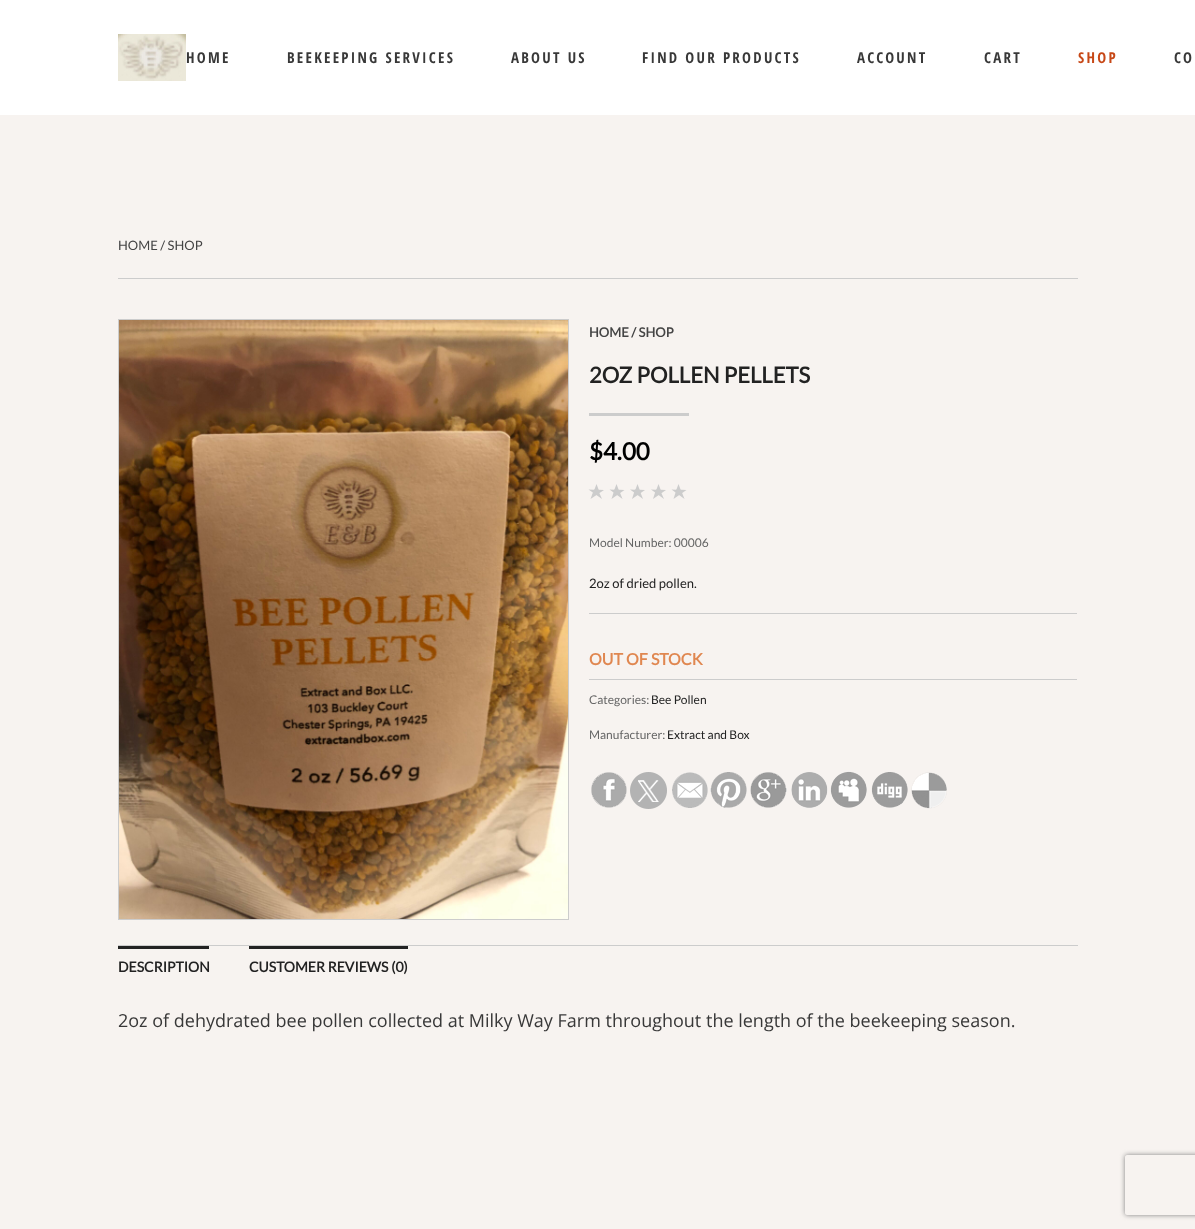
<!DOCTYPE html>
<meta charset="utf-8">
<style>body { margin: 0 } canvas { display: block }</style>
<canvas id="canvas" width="1195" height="1229"></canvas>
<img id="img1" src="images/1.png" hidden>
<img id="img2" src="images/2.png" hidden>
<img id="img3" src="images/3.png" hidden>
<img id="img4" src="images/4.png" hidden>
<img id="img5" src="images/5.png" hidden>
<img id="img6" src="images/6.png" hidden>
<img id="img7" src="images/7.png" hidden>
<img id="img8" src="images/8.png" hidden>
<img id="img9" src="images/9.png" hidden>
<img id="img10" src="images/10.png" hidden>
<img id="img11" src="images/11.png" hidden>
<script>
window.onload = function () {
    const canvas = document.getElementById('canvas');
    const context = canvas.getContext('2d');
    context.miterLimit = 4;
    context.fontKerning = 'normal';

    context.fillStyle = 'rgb(247, 243, 240)';
    context.fillRect(0, 0, 1195, 1229);
    context.fillStyle = 'rgb(255, 255, 255)';
    context.fillRect(0, 0, 1195, 115);
    context.drawImage(document.getElementById('img1'), 118, 34, 68, 47);
    context.fillStyle = 'rgb(204, 204, 204)';
    context.fillRect(118, 278, 960, 1);
    context.strokeStyle = 'rgb(204, 204, 204)';
    context.strokeRect(118.5, 319.5, 450, 600);
    context.drawImage(document.getElementById('img2'), 119, 320, 449, 599);
    context.fillRect(589, 413, 100, 3);
    context.beginPath();
    context.moveTo(602, 499);
    context.lineTo(588.5, 489.5);
    context.lineTo(598, 490);
    context.closePath();
    context.fill();
    context.beginPath();
    context.moveTo(599.5, 492);
    context.lineTo(593.5, 492);
    context.lineTo(596.5, 484);
    context.closePath();
    context.fill();
    context.beginPath();
    context.moveTo(604, 490);
    context.lineTo(590.5, 499);
    context.lineTo(594, 489.5);
    context.closePath();
    context.moveTo(622.5, 499);
    context.lineTo(609.5, 489.5);
    context.lineTo(619, 490);
    context.closePath();
    context.fill();
    context.beginPath();
    context.moveTo(619.5, 492);
    context.lineTo(613.5, 492);
    context.lineTo(616.5, 484);
    context.closePath();
    context.fill();
    context.beginPath();
    context.moveTo(624.5, 490);
    context.lineTo(611.5, 499);
    context.lineTo(614.5, 489.5);
    context.closePath();
    context.moveTo(643, 499);
    context.lineTo(630, 489.5);
    context.lineTo(639.5, 490);
    context.closePath();
    context.fill();
    context.beginPath();
    context.moveTo(640.5, 492);
    context.lineTo(634.5, 492);
    context.lineTo(637.5, 484);
    context.closePath();
    context.fill();
    context.beginPath();
    context.moveTo(645, 490);
    context.lineTo(632, 499);
    context.lineTo(635, 489.5);
    context.closePath();
    context.moveTo(664, 499);
    context.lineTo(651, 489.5);
    context.lineTo(660, 490);
    context.closePath();
    context.fill();
    context.beginPath();
    context.moveTo(661.5, 492);
    context.lineTo(655.5, 492);
    context.lineTo(658.5, 484);
    context.closePath();
    context.fill();
    context.beginPath();
    context.moveTo(666, 490);
    context.lineTo(653, 499);
    context.lineTo(656, 489.5);
    context.closePath();
    context.moveTo(684.5, 499);
    context.lineTo(671.5, 489.5);
    context.lineTo(681, 490);
    context.closePath();
    context.fill();
    context.beginPath();
    context.moveTo(681.5, 492);
    context.lineTo(675.5, 492);
    context.lineTo(678.5, 484);
    context.closePath();
    context.fill();
    context.beginPath();
    context.moveTo(686.5, 490);
    context.lineTo(673.5, 499);
    context.lineTo(676.5, 489.5);
    context.closePath();
    context.fill();
    context.fillRect(589, 613, 488, 1);
    context.fillRect(589, 679, 488, 1);
    context.drawImage(document.getElementById('img3'), 591, 772, 36, 36);
    context.drawImage(document.getElementById('img4'), 630, 772, 37, 37);
    context.drawImage(document.getElementById('img5'), 672, 772, 36, 36);
    context.drawImage(document.getElementById('img6'), 710, 772, 37, 36);
    context.drawImage(document.getElementById('img7'), 750, 772, 37, 36);
    context.drawImage(document.getElementById('img8'), 791, 772, 37, 36);
    context.drawImage(document.getElementById('img9'), 830, 771, 37, 37);
    context.drawImage(document.getElementById('img10'), 871, 772, 37, 36);
    context.drawImage(document.getElementById('img11'), 911, 772, 36, 37);
    context.fillRect(118, 945, 960, 1);
    context.fillStyle = 'rgb(34, 34, 34)';
    context.fillRect(118, 946, 91, 3);
    context.fillRect(249, 946, 159, 3);
    context.save();
    context.beginPath();
    context.moveTo(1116, 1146);
    context.lineTo(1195, 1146);
    context.lineTo(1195, 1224);
    context.lineTo(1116, 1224);
    context.closePath();
    context.moveTo(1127, 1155);
    context.lineTo(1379, 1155);
    context.bezierCurveTo(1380, 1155, 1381, 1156, 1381, 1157);
    context.lineTo(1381, 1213);
    context.bezierCurveTo(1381, 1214, 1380, 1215, 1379, 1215);
    context.lineTo(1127, 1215);
    context.bezierCurveTo(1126, 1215, 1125, 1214, 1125, 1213);
    context.lineTo(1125, 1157);
    context.bezierCurveTo(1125, 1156, 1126, 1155, 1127, 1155);
    context.closePath();
    context.clip('evenodd');
    context.fillStyle = 'rgb(128, 128, 128)';
    context.filter = 'blur(2.5px)';
    context.beginPath();
    context.roundRect(1125, 1155, 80, 60, 2);
    context.fill();
    context.filter = 'none';
    context.restore();
    context.letterSpacing = '2.25px';
    context.font = 'bold 15px Open Sans Condensed';
    context.fillStyle = 'rgb(56, 56, 56)';
    context.fillText('HOME', 186, 63);
    context.fillText('BEEKEEPING SERVICES', 287, 63);
    context.fillText('ABOUT US', 511, 63);
    context.fillText('FIND OUR PRODUCTS', 642, 63);
    context.fillText('ACCOUNT', 857, 63);
    context.fillText('CART', 984, 63);
    context.fillStyle = 'rgb(199, 72, 23)';
    context.fillText('SHOP', 1078, 63);
    context.fillStyle = 'rgb(56, 56, 56)';
    context.fillText('CO', 1174, 63);
    context.letterSpacing = '0px';
    context.font = '13px Lato';
    context.fillStyle = 'rgb(68, 68, 68)';
    context.fillText('HOME / SHOP', 118, 250);
    context.font = 'bold 13px Lato';
    context.fillText('HOME / SHOP', 589, 337);
    context.font = 'bold 22px Lato';
    context.fillStyle = 'rgb(34, 34, 34)';
    context.fillText('2OZ POLLEN PELLETS', 589, 383);
    context.font = 'bold 24px Lato';
    context.fillStyle = 'rgb(0, 0, 0)';
    context.fillText('$4.00', 589, 460);
    context.font = '12px Lato';
    context.fillStyle = 'rgb(102, 102, 102)';
    context.fillText('Model Number: 00006', 589, 547);
    context.font = '13px Lato';
    context.fillStyle = 'rgb(34, 34, 34)';
    context.fillText('2oz of dried pollen.', 589, 588);
    context.font = 'bold 16px Lato';
    context.fillStyle = 'rgb(224, 135, 80)';
    context.fillText('OUT OF STOCK', 589, 665);
    context.font = '12px Lato';
    context.fillStyle = 'rgb(102, 102, 102)';
    context.fillText('Categories:', 589, 704);
    context.fillStyle = 'rgb(34, 34, 34)';
    context.fillText('Bee Pollen', 651, 704);
    context.fillStyle = 'rgb(102, 102, 102)';
    context.fillText('Manufacturer:', 589, 739);
    context.fillStyle = 'rgb(34, 34, 34)';
    context.fillText('Extract and Box', 667, 739);
    context.font = 'bold 14px Lato';
    context.fillText('DESCRIPTION', 118, 972);
    context.fillText('CUSTOMER REVIEWS (0)', 249, 972);
    context.font = '18px Open Sans';
    context.fillStyle = 'rgb(56, 56, 56)';
    context.fillText('2oz of dehydrated bee pollen collected at Milky Way Farm throughout the length of the beekeeping season.', 118, 1027);
};
</script>
